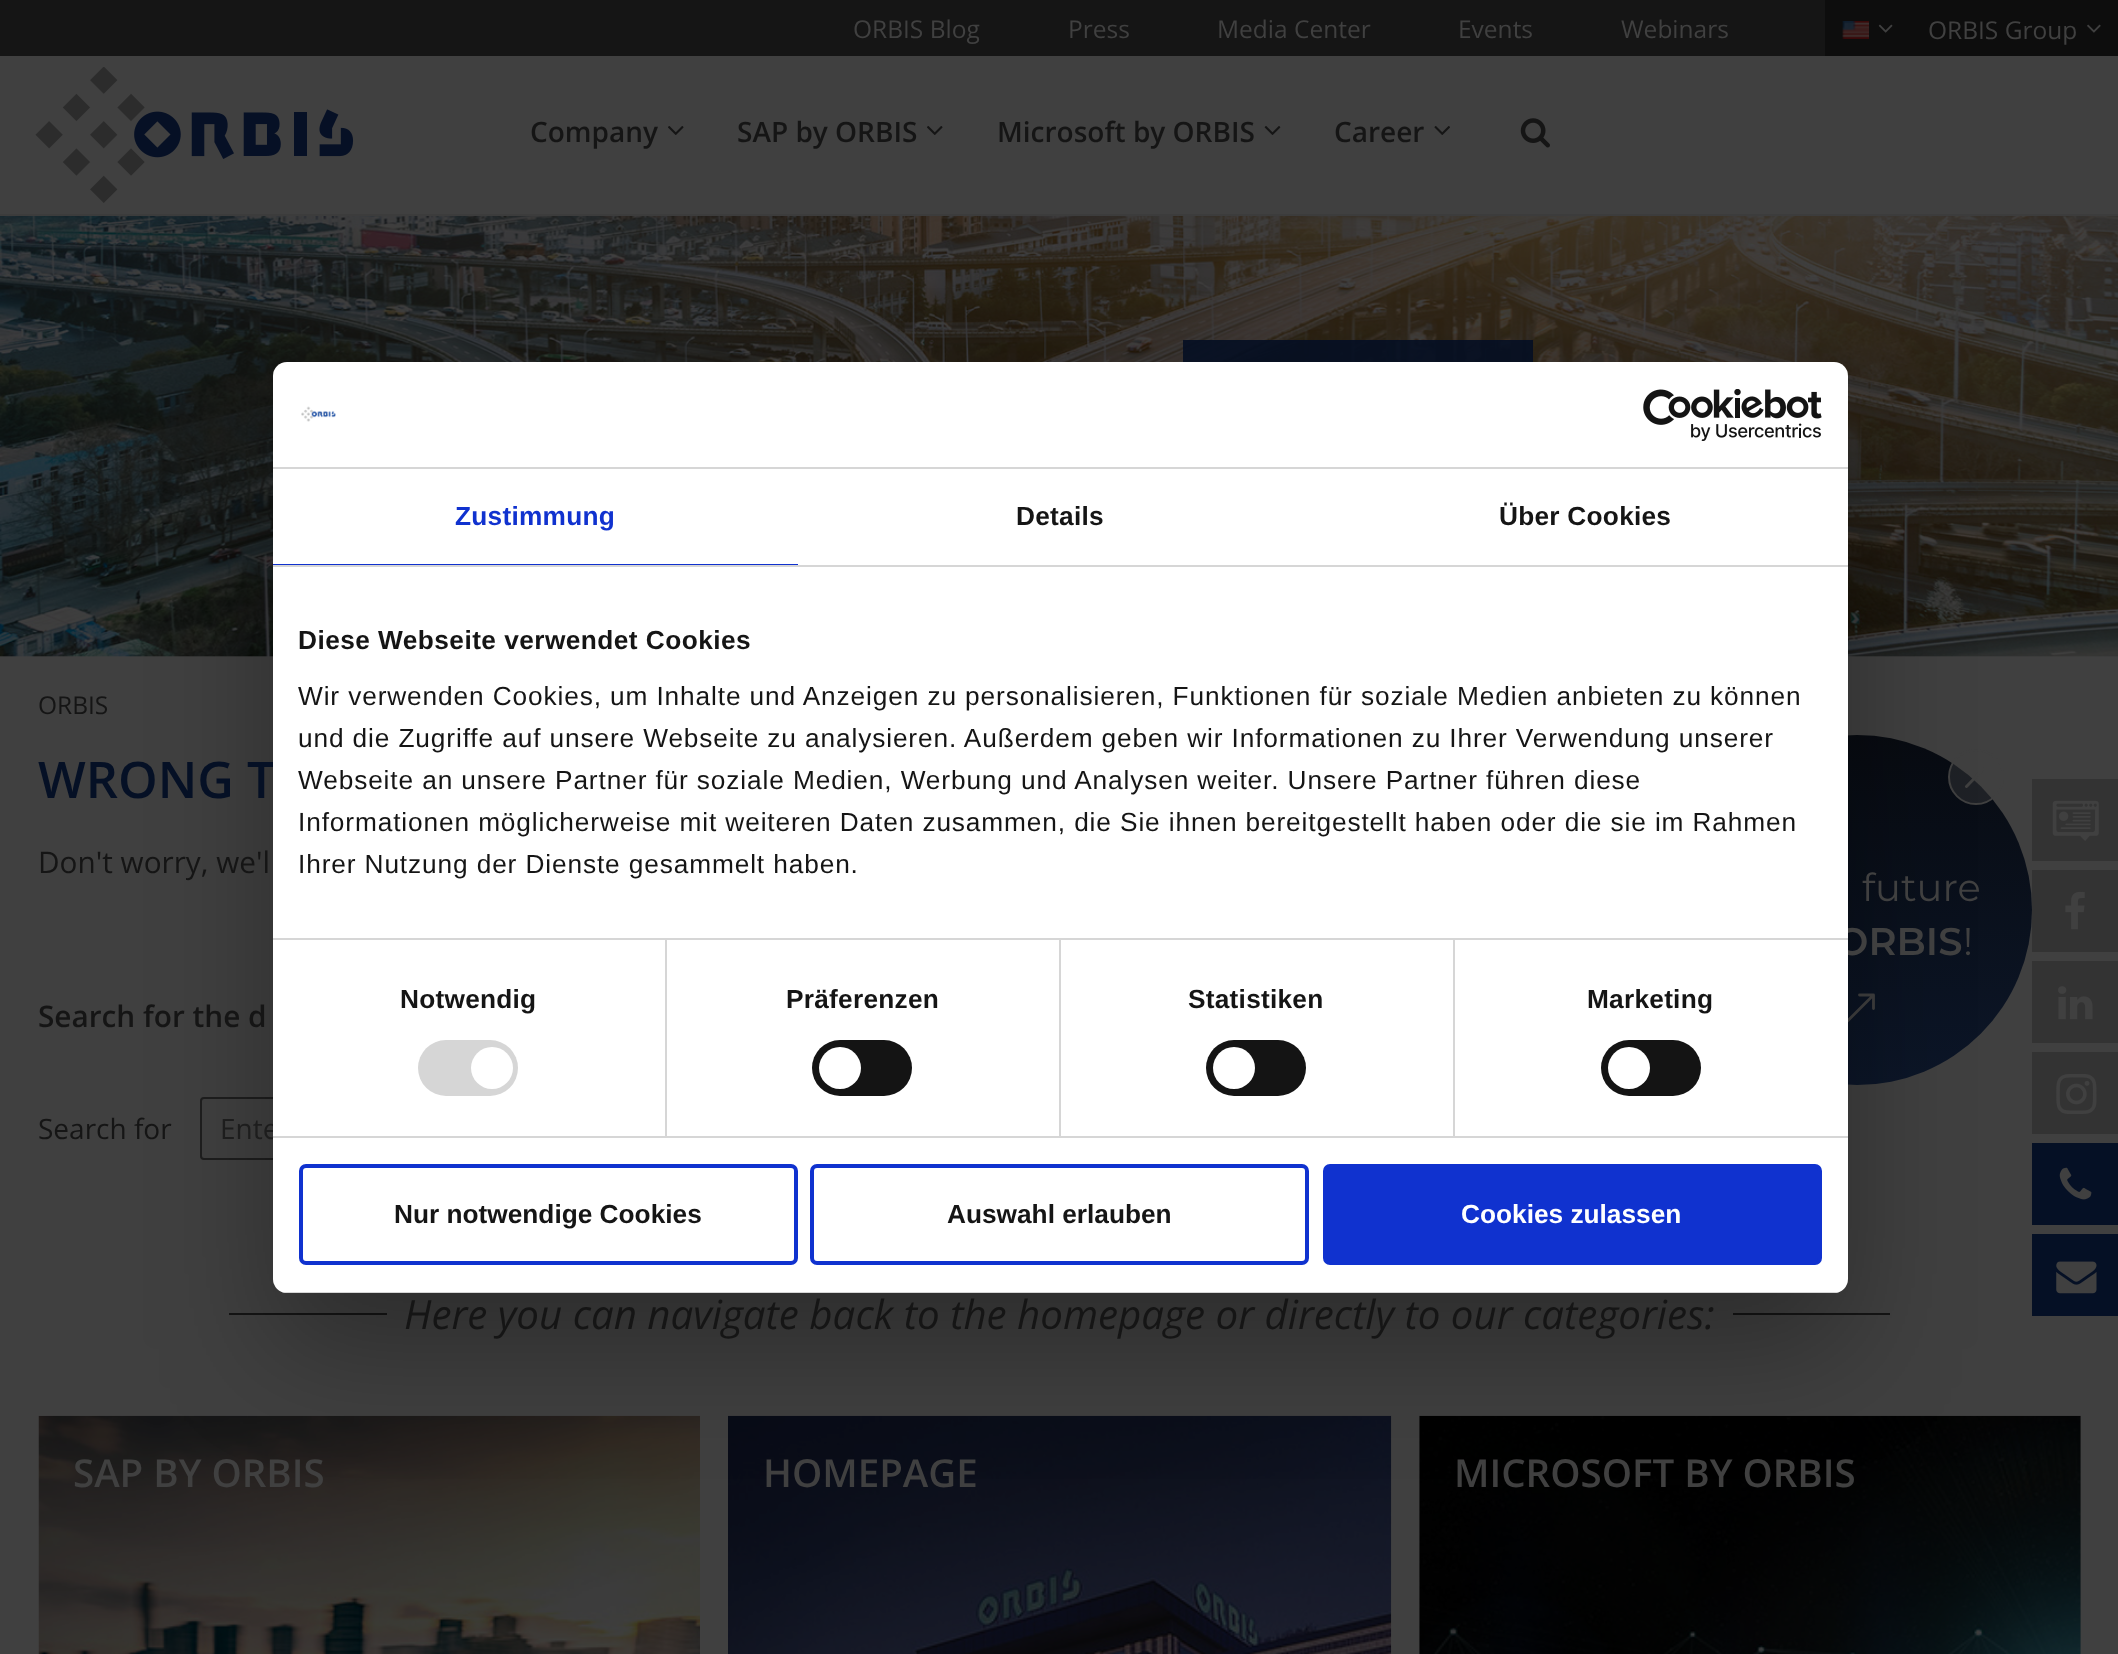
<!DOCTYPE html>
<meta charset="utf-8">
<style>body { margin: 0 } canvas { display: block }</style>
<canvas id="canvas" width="2118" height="1654"></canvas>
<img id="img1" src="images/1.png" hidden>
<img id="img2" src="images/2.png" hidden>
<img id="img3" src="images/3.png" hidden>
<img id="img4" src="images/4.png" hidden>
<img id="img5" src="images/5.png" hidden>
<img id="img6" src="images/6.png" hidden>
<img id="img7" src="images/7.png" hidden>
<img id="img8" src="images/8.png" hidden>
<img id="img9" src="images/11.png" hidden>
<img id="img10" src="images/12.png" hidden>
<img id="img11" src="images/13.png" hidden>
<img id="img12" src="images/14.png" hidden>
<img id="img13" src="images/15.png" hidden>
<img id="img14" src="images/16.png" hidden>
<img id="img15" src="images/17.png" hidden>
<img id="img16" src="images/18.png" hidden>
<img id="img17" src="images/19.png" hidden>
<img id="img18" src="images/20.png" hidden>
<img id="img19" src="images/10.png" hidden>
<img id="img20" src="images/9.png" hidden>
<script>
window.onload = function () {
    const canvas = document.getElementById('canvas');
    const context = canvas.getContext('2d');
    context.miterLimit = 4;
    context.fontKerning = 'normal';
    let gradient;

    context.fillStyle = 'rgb(64, 64, 64)';
    context.fillRect(0, 0, 2118, 1654);
    context.fillStyle = 'rgb(60, 60, 60)';
    context.fillRect(0, 214, 2118, 2);
    context.fillStyle = 'rgb(21, 21, 21)';
    context.fillRect(0, 0, 1825, 56);
    context.fillStyle = 'rgb(13, 13, 13)';
    context.fillRect(1825, 0, 293, 56);
    context.drawImage(document.getElementById('img1'), 1842, 21, 27, 18);
    context.drawImage(document.getElementById('img2'), 1878, 24, 15, 9);
    context.drawImage(document.getElementById('img3'), 2087, 24, 14, 9);
    context.drawImage(document.getElementById('img4'), 35, 67, 319, 136);
    context.drawImage(document.getElementById('img5'), 668, 126, 16, 9);
    context.drawImage(document.getElementById('img5'), 927, 126, 16, 9);
    context.drawImage(document.getElementById('img6'), 1264, 126, 17, 9);
    context.drawImage(document.getElementById('img7'), 1434, 126, 16, 9);
    context.drawImage(document.getElementById('img8'), 1520, 118, 30, 30);
    context.drawImage(document.getElementById('img9'), 0, 216, 2118, 441);
    context.fillStyle = 'rgba(5, 16, 37, 0.9)';
    context.fillRect(1183, 340, 350, 22);
    context.beginPath();
    context.roundRect(201, 1098, 1224, 61, 3);
    context.strokeStyle = 'rgb(30, 30, 30)';
    context.lineWidth = 2;
    context.stroke();
    context.fillStyle = 'rgb(21, 21, 21)';
    context.fillRect(229, 1313, 158, 2);
    context.fillRect(1733, 1313, 157, 2);
    context.drawImage(document.getElementById('img10'), 38, 1415, 662, 239);
    context.drawImage(document.getElementById('img11'), 728, 1415, 664, 239);
    context.drawImage(document.getElementById('img12'), 1419, 1415, 662, 239);
    gradient = context.createLinearGradient(1857, 671, 1857, 1085);
    gradient.addColorStop(0, 'rgb(7, 9, 13)');
    gradient.addColorStop(1, 'rgb(12, 22, 40)');
    context.fillStyle = gradient;
    context.beginPath();
    context.arc(1857, 910, 175, 0, 2 * Math.PI);
    context.fill();
    context.fillStyle = 'rgba(64, 64, 64, 0.4)';
    context.beginPath();
    context.arc(1976, 777, 27, 0, 2 * Math.PI);
    context.fill();
    context.strokeStyle = 'rgb(64, 64, 64)';
    context.stroke();
    context.save();
    context.beginPath();
    context.rect(1965, 767, 21, 21);
    context.clip();
    context.beginPath();
    context.moveTo(1985, 767.5);
    context.lineTo(1966.5, 786.5);
    context.lineWidth = 3;
    context.lineCap = 'round';
    context.lineJoin = 'round';
    context.stroke();
    context.restore();
    context.beginPath();
    context.moveTo(1859.5, 995);
    context.lineTo(1873.5, 995);
    context.moveTo(1873.5, 995);
    context.lineTo(1873.5, 1008.5);
    context.moveTo(1873.5, 995);
    context.lineTo(1842, 1026.5);
    context.lineWidth = 2.8;
    context.lineCap = 'round';
    context.lineJoin = 'round';
    context.stroke();
    context.fillStyle = 'rgba(0, 0, 0, 0.3)';
    context.filter = 'blur(59.5px)';
    context.beginPath();
    context.roundRect(273, 418, 1575, 931, 14);
    context.fill();
    context.filter = 'none';
    context.fillStyle = 'rgb(51, 51, 51)';
    context.fillRect(2032, 779, 86, 82);
    context.drawImage(document.getElementById('img13'), 2052, 800, 47, 41);
    context.fillRect(2032, 870, 86, 82);
    context.drawImage(document.getElementById('img14'), 2065, 891, 20, 39);
    context.fillRect(2032, 961, 86, 82);
    context.drawImage(document.getElementById('img15'), 2058, 986, 35, 34);
    context.fillRect(2032, 1052, 86, 82);
    context.drawImage(document.getElementById('img16'), 2056, 1074, 41, 40);
    context.fillStyle = 'rgb(5, 16, 37)';
    context.fillRect(2032, 1143, 86, 82);
    context.drawImage(document.getElementById('img17'), 2059, 1167, 33, 33);
    context.fillRect(2032, 1234, 86, 82);
    context.drawImage(document.getElementById('img18'), 2056, 1261, 41, 33);
    context.font = '24.5px Open Sans';
    context.fillStyle = 'rgb(64, 64, 64)';
    context.fillText('ORBIS Blog', 853, 38);
    context.fillText('Press', 1068, 38);
    context.fillText('Media Center', 1217, 38);
    context.fillText('Events', 1458, 38);
    context.fillText('Webinars', 1621, 38);
    context.fillText('ORBIS Group', 1928, 39);
    context.font = '600 28px Open Sans';
    context.fillStyle = 'rgb(21, 21, 21)';
    context.fillText('Company', 530, 142);
    context.fillText('SAP by ORBIS', 737, 142);
    context.fillText('Microsoft by ORBIS', 997, 142);
    context.fillText('Career', 1334, 142);
    context.font = '24.5px Open Sans';
    context.fillText('ORBIS', 38, 714);
    context.font = '600 50.5px Open Sans';
    context.fillStyle = 'rgb(5, 16, 37)';
    context.fillText('WRONG T', 38, 798);
    context.font = '29.75px Open Sans';
    context.fillStyle = 'rgb(21, 21, 21)';
    context.fillText('Don\'t worry, we\'l', 38, 873);
    context.font = '600 29.75px Open Sans';
    context.fillText('Search for the d', 38, 1027);
    context.font = '28px Open Sans';
    context.fillText('Search for', 38, 1139);
    context.fillStyle = 'rgb(29, 29, 29)';
    context.fillText('Ente', 220, 1139);
    context.font = 'italic 40.25px Open Sans';
    context.fillStyle = 'rgb(21, 21, 21)';
    context.fillText('Here you can navigate back to the homepage or directly to our categories:', 404, 1329);
    context.font = '600 38.5px Open Sans';
    context.fillStyle = 'rgb(64, 64, 64)';
    context.fillText('SAP BY ORBIS', 73, 1487);
    context.fillText('HOMEPAGE', 763, 1487);
    context.fillText('MICROSOFT BY ORBIS', 1454, 1487);
    context.font = '38.5px Montserrat';
    context.fillText('future', 1862, 901);
    context.font = '600 38.5px Montserrat';
    context.fillText('ORBIS', 1836, 955);
    context.fillStyle = 'rgb(255, 255, 255)';
    context.beginPath();
    context.roundRect(273, 362, 1575, 931, 14);
    context.fill();
    context.fillStyle = 'rgb(16, 50, 207)';
    context.beginPath();
    context.roundRect(1325, 1166, 495, 97, 5);
    context.fill();
    context.strokeStyle = 'rgb(16, 50, 207)';
    context.lineWidth = 4;
    context.lineJoin = 'miter';
    context.stroke();
    context.font = 'bold 26.25px Liberation Sans';
    context.fillStyle = 'rgb(255, 255, 255)';
    context.fillText('Cookies zulassen', 1461, 1223);
    context.beginPath();
    context.roundRect(812, 1166, 495, 97, 5);
    context.stroke();
    context.fillStyle = 'rgb(21, 21, 21)';
    context.fillText('Auswahl erlauben', 947, 1223);
    context.beginPath();
    context.roundRect(301, 1166, 495, 97, 5);
    context.stroke();
    context.fillText('Nur notwendige Cookies', 394, 1223);
    context.save();
    context.beginPath();
    context.roundRect(273, 362, 1575, 931, 14);
    context.clip();
    context.fillStyle = 'rgb(214, 214, 214)';
    context.fillRect(282, 1292, 1557, 1);
    context.restore();
    context.fillStyle = 'rgb(20, 20, 20)';
    context.beginPath();
    context.roundRect(1601, 1040, 100, 56, 28);
    context.fill();
    context.fillStyle = 'rgb(255, 255, 255)';
    context.beginPath();
    context.arc(1629, 1068, 21, 0, 2 * Math.PI);
    context.fill();
    context.fillStyle = 'rgb(20, 20, 20)';
    context.beginPath();
    context.roundRect(1206, 1040, 100, 56, 28);
    context.fill();
    context.fillStyle = 'rgb(255, 255, 255)';
    context.beginPath();
    context.arc(1234, 1068, 21, 0, 2 * Math.PI);
    context.fill();
    context.fillStyle = 'rgb(20, 20, 20)';
    context.beginPath();
    context.roundRect(812, 1040, 100, 56, 28);
    context.fill();
    context.fillStyle = 'rgb(255, 255, 255)';
    context.beginPath();
    context.arc(840, 1068, 21, 0, 2 * Math.PI);
    context.fill();
    context.fillStyle = 'rgb(214, 214, 214)';
    context.beginPath();
    context.roundRect(418, 1040, 100, 56, 28);
    context.fill();
    context.fillStyle = 'rgb(255, 255, 255)';
    context.beginPath();
    context.arc(492, 1068, 21, 0, 2 * Math.PI);
    context.fill();
    context.letterSpacing = '0.88px';
    context.font = '26.25px Liberation Sans';
    context.fillStyle = 'rgb(21, 21, 21)';
    context.fillText('Ihrer Nutzung der Dienste gesammelt haben.', 298, 873);
    context.fillText('Informationen möglicherweise mit weiteren Daten zusammen, die Sie ihnen bereitgestellt haben oder die sie im Rahmen', 298, 831);
    context.fillText('Webseite an unsere Partner für soziale Medien, Werbung und Analysen weiter. Unsere Partner führen diese', 298, 789);
    context.fillText('und die Zugriffe auf unsere Webseite zu analysieren. Außerdem geben wir Informationen zu Ihrer Verwendung unserer', 298, 747);
    context.fillText('Wir verwenden Cookies, um Inhalte und Anzeigen zu personalisieren, Funktionen für soziale Medien anbieten zu können', 298, 705);
    context.letterSpacing = '0.45px';
    context.font = 'bold 26.25px Liberation Sans';
    context.fillText('Diese Webseite verwendet Cookies', 298, 649);
    context.fillStyle = 'rgb(214, 214, 214)';
    context.fillRect(273, 938, 1575, 2);
    context.letterSpacing = '0.25px';
    context.fillStyle = 'rgb(21, 21, 21)';
    context.fillText('Über Cookies', 1499, 525);
    context.fillText('Details', 1016, 525);
    context.fillStyle = 'rgb(16, 50, 207)';
    context.fillText('Zustimmung', 455, 525);
    context.fillRect(273, 564, 525, 1);
    context.fillStyle = 'rgb(214, 214, 214)';
    context.fillRect(273, 565, 1575, 2);
    context.fillStyle = 'rgb(21, 21, 21)';
    context.fillText('Marketing', 1587, 1008);
    context.fillText('Statistiken', 1188, 1008);
    context.fillStyle = 'rgb(214, 214, 214)';
    context.fillRect(1453, 940, 2, 196);
    context.fillStyle = 'rgb(21, 21, 21)';
    context.fillText('Präferenzen', 786, 1008);
    context.fillStyle = 'rgb(214, 214, 214)';
    context.fillRect(1059, 940, 2, 196);
    context.fillStyle = 'rgb(21, 21, 21)';
    context.fillText('Notwendig', 400, 1008);
    context.fillStyle = 'rgb(214, 214, 214)';
    context.fillRect(665, 940, 2, 196);
    context.fillRect(273, 1136, 1575, 2);
    context.drawImage(document.getElementById('img19'), 1643, 389, 179, 52);
    context.drawImage(document.getElementById('img20'), 301, 406, 35, 16);
    context.fillRect(273, 467, 1575, 2);
    context.letterSpacing = '0px';
    context.font = '38.5px Montserrat';
    context.fillStyle = 'rgb(64, 64, 64)';
    context.fillText('!', 1963, 955);
};
</script>
